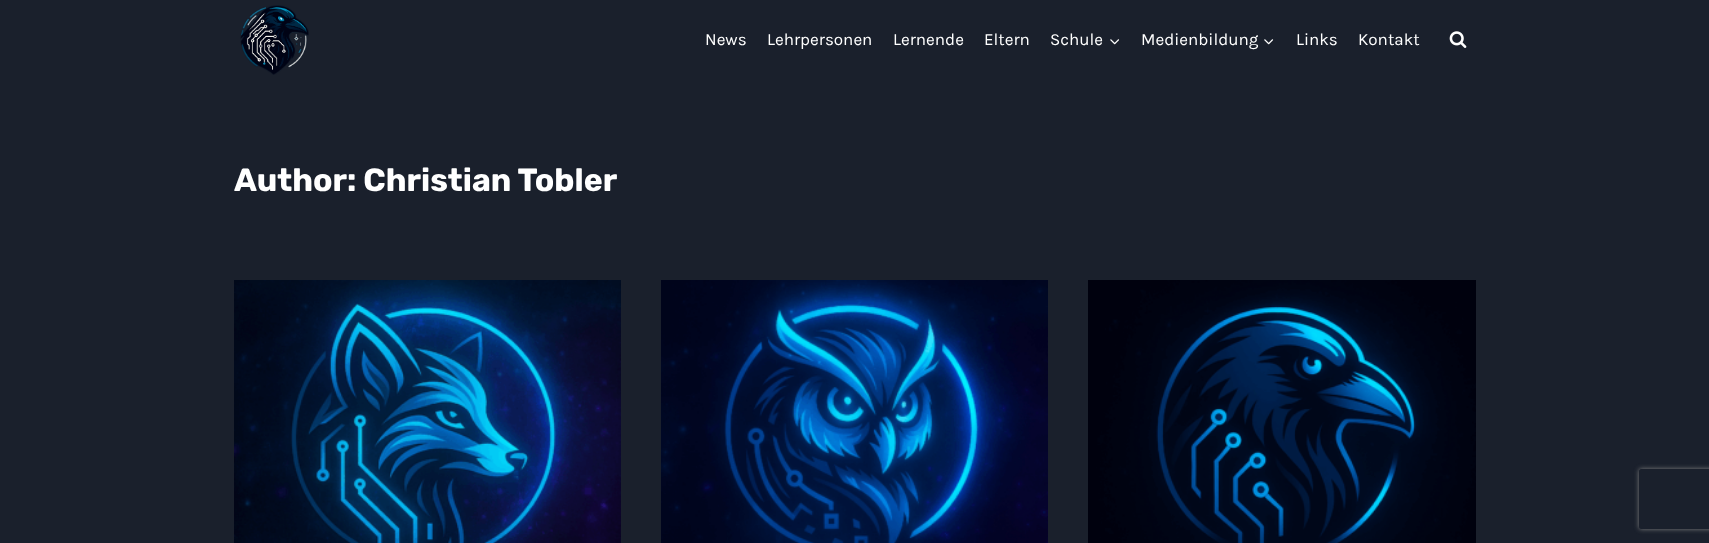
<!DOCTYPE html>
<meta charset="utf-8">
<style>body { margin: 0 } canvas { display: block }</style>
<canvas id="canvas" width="1709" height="543"></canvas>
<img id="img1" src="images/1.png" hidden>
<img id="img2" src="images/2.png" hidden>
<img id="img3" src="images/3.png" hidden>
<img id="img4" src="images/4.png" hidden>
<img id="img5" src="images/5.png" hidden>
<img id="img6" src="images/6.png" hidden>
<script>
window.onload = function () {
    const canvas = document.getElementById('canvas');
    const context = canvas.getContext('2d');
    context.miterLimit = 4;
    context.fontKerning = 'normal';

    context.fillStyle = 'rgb(26, 32, 44)';
    context.fillRect(0, 0, 1709, 543);
    context.drawImage(document.getElementById('img1'), 240, 5, 69, 70);
    context.drawImage(document.getElementById('img2'), 1110, 39, 10, 6);
    context.drawImage(document.getElementById('img2'), 1264, 39, 10, 6);
    context.drawImage(document.getElementById('img3'), 1449, 31, 18, 17);
    context.drawImage(document.getElementById('img4'), 234, 280, 387, 263);
    context.drawImage(document.getElementById('img5'), 661, 280, 387, 263);
    context.drawImage(document.getElementById('img6'), 1088, 280, 388, 263);
    context.save();
    context.beginPath();
    context.moveTo(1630, 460);
    context.lineTo(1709, 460);
    context.lineTo(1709, 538);
    context.lineTo(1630, 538);
    context.closePath();
    context.moveTo(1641, 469);
    context.lineTo(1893, 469);
    context.bezierCurveTo(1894, 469, 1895, 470, 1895, 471);
    context.lineTo(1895, 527);
    context.bezierCurveTo(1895, 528, 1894, 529, 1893, 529);
    context.lineTo(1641, 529);
    context.bezierCurveTo(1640, 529, 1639, 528, 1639, 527);
    context.lineTo(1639, 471);
    context.bezierCurveTo(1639, 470, 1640, 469, 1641, 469);
    context.closePath();
    context.clip('evenodd');
    context.fillStyle = 'rgb(128, 128, 128)';
    context.filter = 'blur(2.5px)';
    context.beginPath();
    context.roundRect(1639, 469, 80, 60, 2);
    context.fill();
    context.filter = 'none';
    context.restore();
    context.font = '17px Karla';
    context.fillStyle = 'rgb(255, 255, 255)';
    context.fillText('News', 705, 45);
    context.fillText('Lehrpersonen', 767, 45);
    context.fillText('Lernende', 893, 45);
    context.fillText('Eltern', 984, 45);
    context.fillText('Schule', 1050, 45);
    context.fillText('Medienbildung', 1141, 45);
    context.fillText('Links', 1296, 45);
    context.fillText('Kontakt', 1358, 45);
    context.font = '300 32px Rubik';
    context.fillText('Author: Christian Tobler', 234, 191);
};
</script>
